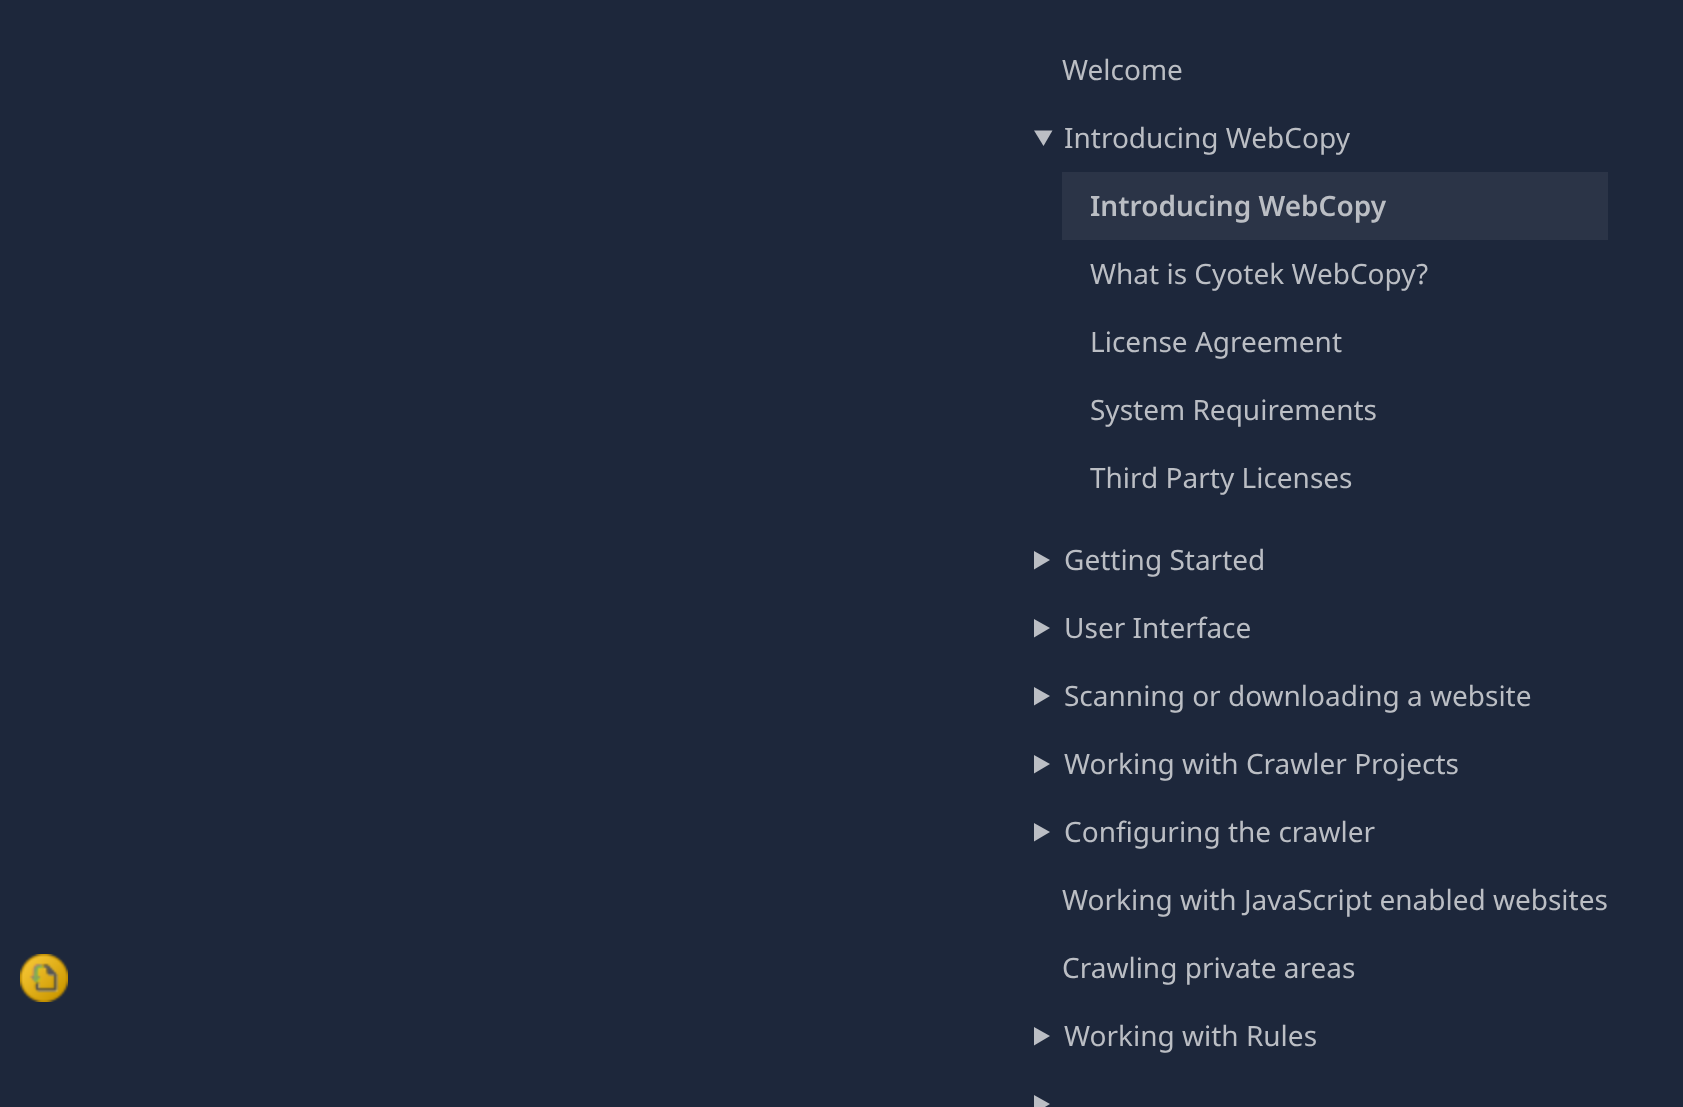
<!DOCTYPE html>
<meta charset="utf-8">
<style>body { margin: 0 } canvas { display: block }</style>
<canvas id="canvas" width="1683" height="1107"></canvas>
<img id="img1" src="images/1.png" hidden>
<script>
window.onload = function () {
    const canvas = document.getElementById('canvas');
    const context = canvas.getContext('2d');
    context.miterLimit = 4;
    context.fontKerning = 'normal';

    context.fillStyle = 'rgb(29, 39, 59)';
    context.fillRect(0, 0, 1683, 1107);
    context.drawImage(document.getElementById('img1'), 20, 954, 48, 48);
    context.fillStyle = 'rgb(187, 190, 196)';
    context.beginPath();
    context.moveTo(1034, 130.5);
    context.lineTo(1052.5, 130.5);
    context.lineTo(1043.5, 146);
    context.closePath();
    context.fill();
    context.fillStyle = 'rgb(43, 52, 71)';
    context.fillRect(1062, 172, 546, 68);
    context.fillStyle = 'rgb(187, 190, 196)';
    context.beginPath();
    context.moveTo(1034, 551);
    context.lineTo(1050, 560);
    context.lineTo(1034, 569.5);
    context.closePath();
    context.fill();
    context.beginPath();
    context.moveTo(1034, 619);
    context.lineTo(1050, 628);
    context.lineTo(1034, 637.5);
    context.closePath();
    context.fill();
    context.beginPath();
    context.moveTo(1034, 687);
    context.lineTo(1050, 696);
    context.lineTo(1034, 705.5);
    context.closePath();
    context.fill();
    context.beginPath();
    context.moveTo(1034, 755);
    context.lineTo(1050, 764);
    context.lineTo(1034, 773.5);
    context.closePath();
    context.fill();
    context.beginPath();
    context.moveTo(1034, 823);
    context.lineTo(1050, 832);
    context.lineTo(1034, 841.5);
    context.closePath();
    context.fill();
    context.beginPath();
    context.moveTo(1034, 1027);
    context.lineTo(1050, 1036);
    context.lineTo(1034, 1045.5);
    context.closePath();
    context.fill();
    context.beginPath();
    context.moveTo(1034, 1095);
    context.lineTo(1050, 1104);
    context.lineTo(1034, 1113.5);
    context.closePath();
    context.fill();
    context.font = '28px Noto Sans';
    context.fillText('Welcome', 1062, 80);
    context.fillText('Introducing WebCopy', 1064, 148);
    context.font = '600 28px Noto Sans';
    context.fillText('Introducing WebCopy', 1090, 216);
    context.font = '28px Noto Sans';
    context.fillText('What is Cyotek WebCopy?', 1090, 284);
    context.fillText('License Agreement', 1090, 352);
    context.fillText('System Requirements', 1090, 420);
    context.fillText('Third Party Licenses', 1090, 488);
    context.fillText('Getting Started', 1064, 570);
    context.fillText('User Interface', 1064, 638);
    context.fillText('Scanning or downloading a website', 1064, 706);
    context.fillText('Working with Crawler Projects', 1064, 774);
    context.fillText('Configuring the crawler', 1064, 842);
    context.fillText('Working with JavaScript enabled websites', 1062, 910);
    context.fillText('Crawling private areas', 1062, 978);
    context.fillText('Working with Rules', 1064, 1046);
};
</script>
